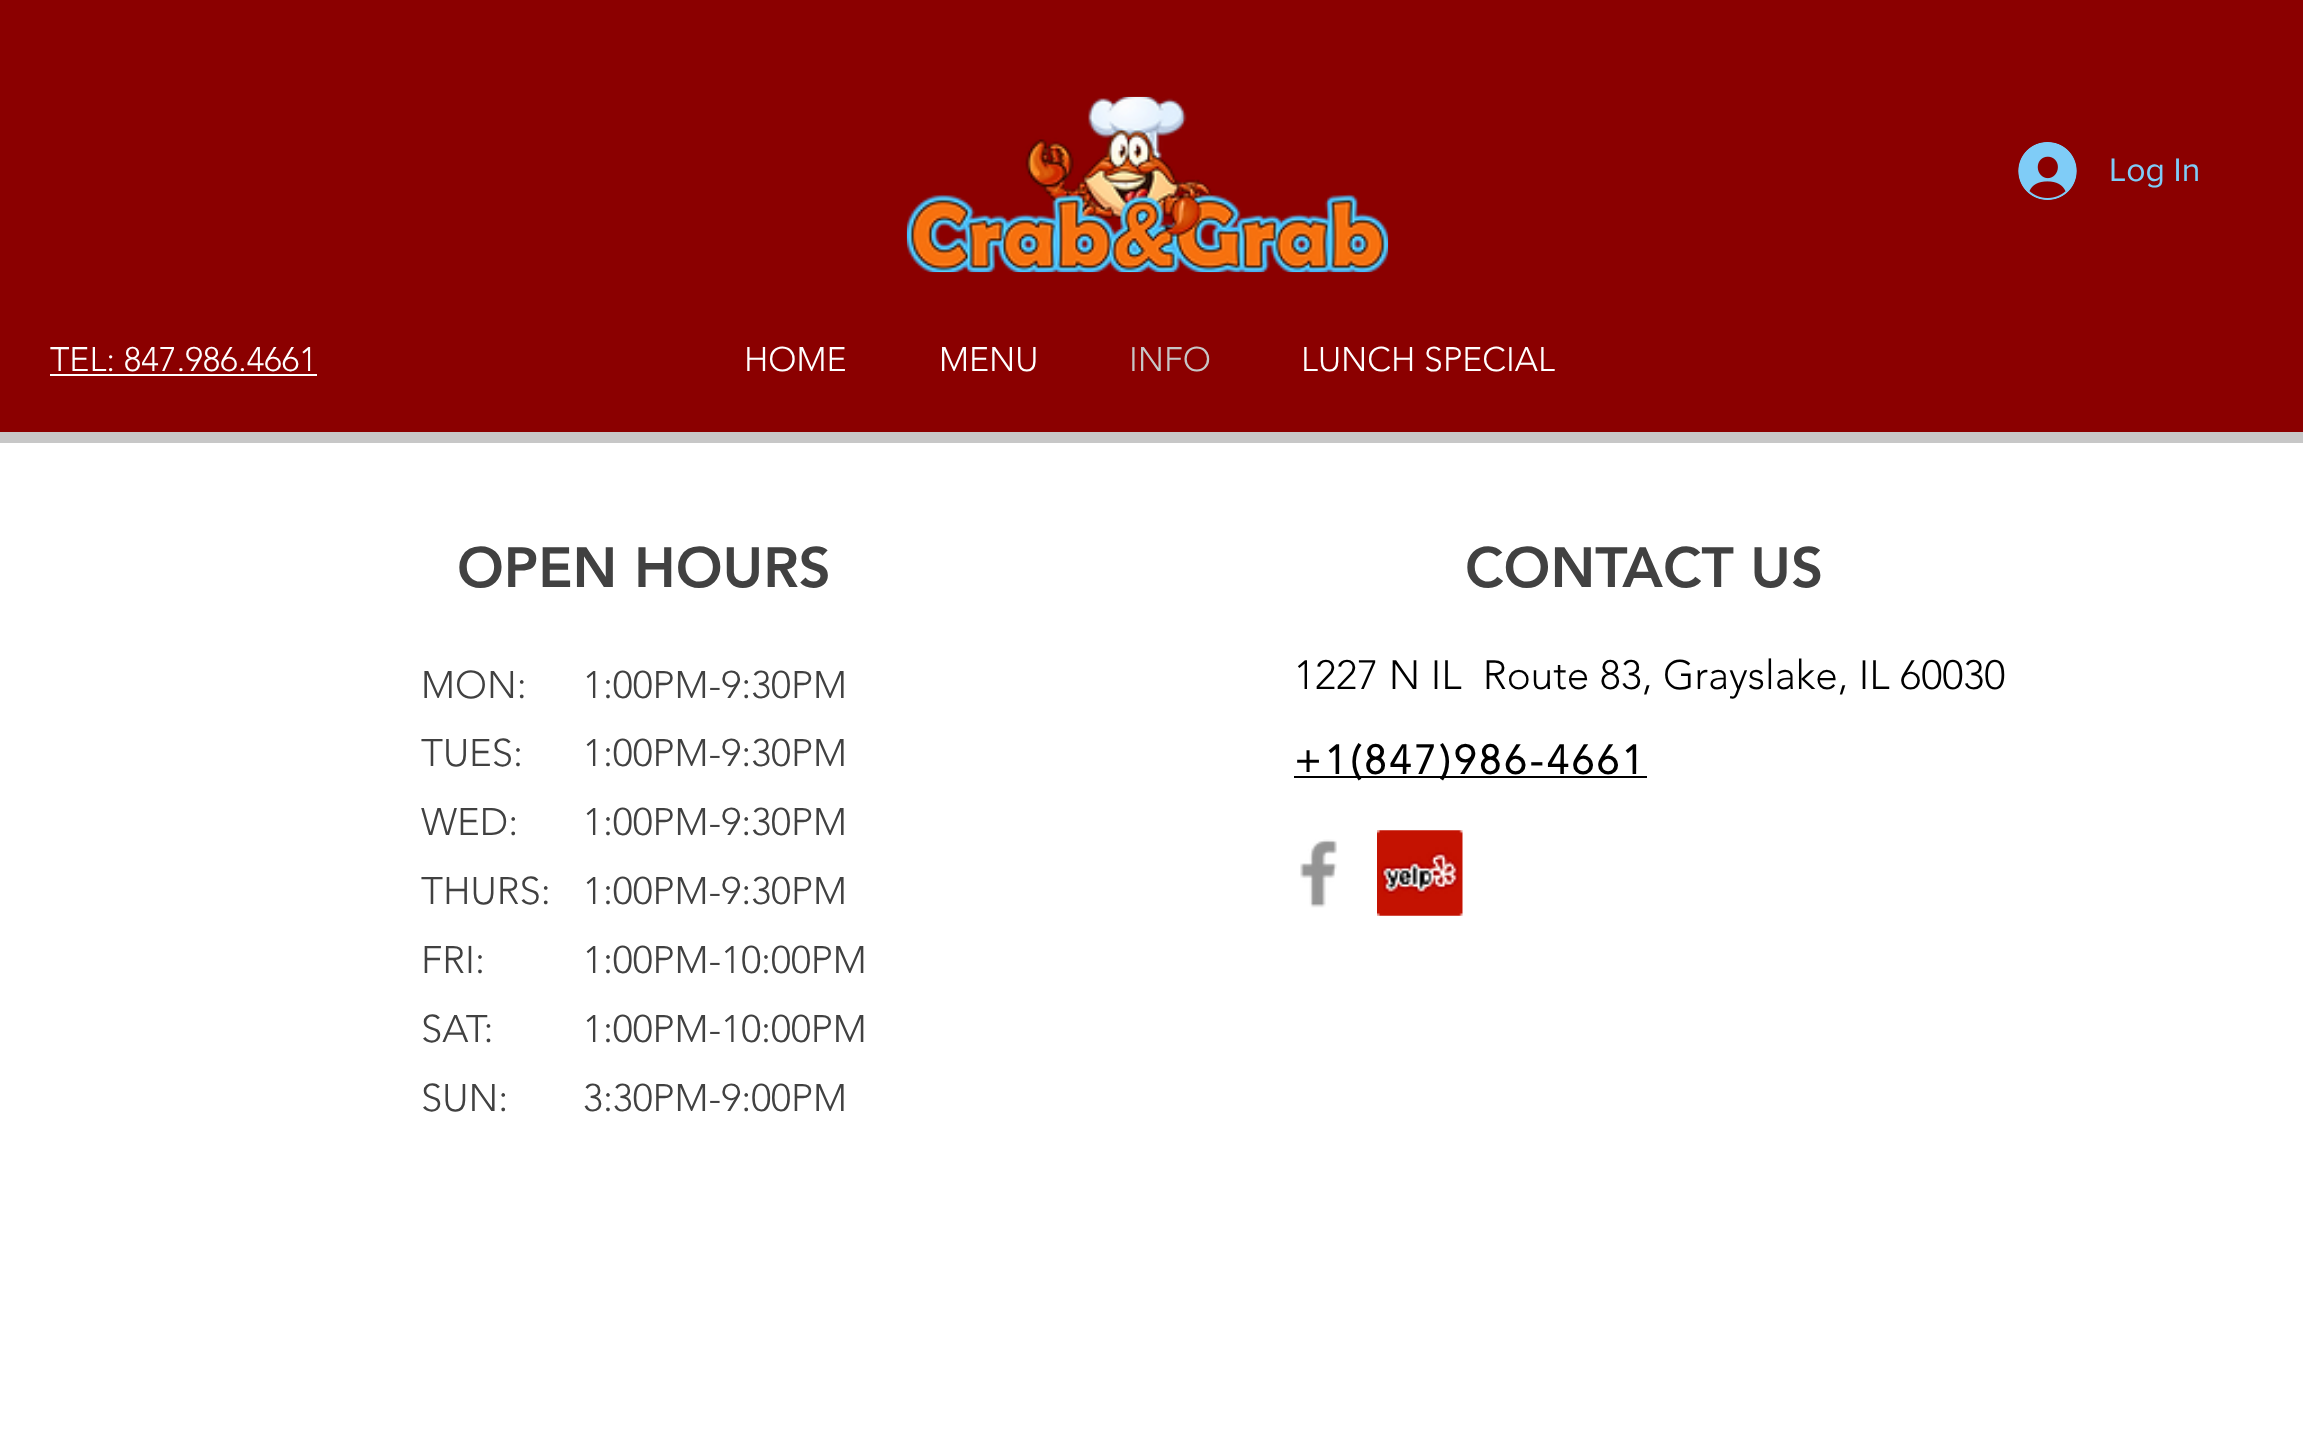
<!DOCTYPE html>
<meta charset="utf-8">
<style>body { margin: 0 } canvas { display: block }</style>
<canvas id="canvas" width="2303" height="1441"></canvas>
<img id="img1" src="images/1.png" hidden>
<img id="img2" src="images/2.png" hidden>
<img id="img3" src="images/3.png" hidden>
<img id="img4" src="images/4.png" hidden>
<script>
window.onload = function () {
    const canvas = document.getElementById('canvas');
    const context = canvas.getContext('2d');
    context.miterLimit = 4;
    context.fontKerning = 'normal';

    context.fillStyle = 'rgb(255, 255, 255)';
    context.fillRect(0, 0, 2303, 1441);
    context.fillStyle = 'rgb(139, 0, 0)';
    context.fillRect(0, 0, 2303, 432);
    context.fillStyle = 'rgb(199, 199, 199)';
    context.fillRect(0, 432, 2303, 11);
    context.drawImage(document.getElementById('img1'), 906, 96, 483, 177);
    context.drawImage(document.getElementById('img2'), 2018, 142, 59, 58);
    context.fillStyle = 'rgb(255, 255, 255)';
    context.fillRect(50, 374, 267, 2);
    context.fillStyle = 'rgb(0, 0, 0)';
    context.fillRect(1294, 776, 353, 2);
    context.drawImage(document.getElementById('img3'), 1300, 839, 37, 69);
    context.drawImage(document.getElementById('img4'), 1377, 830, 86, 86);
    context.font = '33.75px "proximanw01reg"';
    context.fillStyle = 'rgb(127, 204, 247)';
    context.fillText('Log In', 2109, 181);
    context.font = '300 33.75px "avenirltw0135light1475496"';
    context.fillStyle = 'rgb(255, 255, 255)';
    context.fillText('TEL: 847.986.4661', 50, 371);
    context.fillText('HOME', 744, 371);
    context.fillText('MENU', 939, 371);
    context.fillStyle = 'rgb(199, 199, 199)';
    context.fillText('INFO', 1129, 371);
    context.fillStyle = 'rgb(255, 255, 255)';
    context.fillText('LUNCH SPECIAL', 1301, 371);
    context.font = '900 56.25px "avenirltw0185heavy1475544"';
    context.fillStyle = 'rgb(65, 65, 65)';
    context.fillText('OPEN HOURS', 457, 587);
    context.fillText('CONTACT US', 1465, 587);
    context.font = '300 38.25px "avenirltw0135light1475496"';
    context.fillText('MON:', 421, 698);
    context.fillText('TUES:', 421, 766);
    context.fillText('WED:', 421, 835);
    context.fillText('THURS:', 421, 904);
    context.fillText('FRI:', 421, 973);
    context.fillText('SAT:', 421, 1042);
    context.fillText('SUN:', 421, 1111);
    context.fillText('1:00PM-9:30PM', 583, 698);
    context.fillText('1:00PM-9:30PM', 583, 766);
    context.fillText('1:00PM-9:30PM', 583, 835);
    context.fillText('1:00PM-9:30PM', 583, 904);
    context.fillText('1:00PM-10:00PM', 583, 973);
    context.fillText('1:00PM-10:00PM', 583, 1042);
    context.fillText('3:30PM-9:00PM', 583, 1111);
    context.font = '300 40.5px "avenirltw0135light1475496"';
    context.fillStyle = 'rgb(0, 0, 0)';
    context.fillText('1227 N IL  Route 83, Grayslake, IL 60030', 1294, 689);
    context.letterSpacing = '4px';
    context.font = 'bold 40.5px "avenirltw0135light1475496"';
    context.fillText('+1(847)986-4661', 1294, 774);
};
</script>
